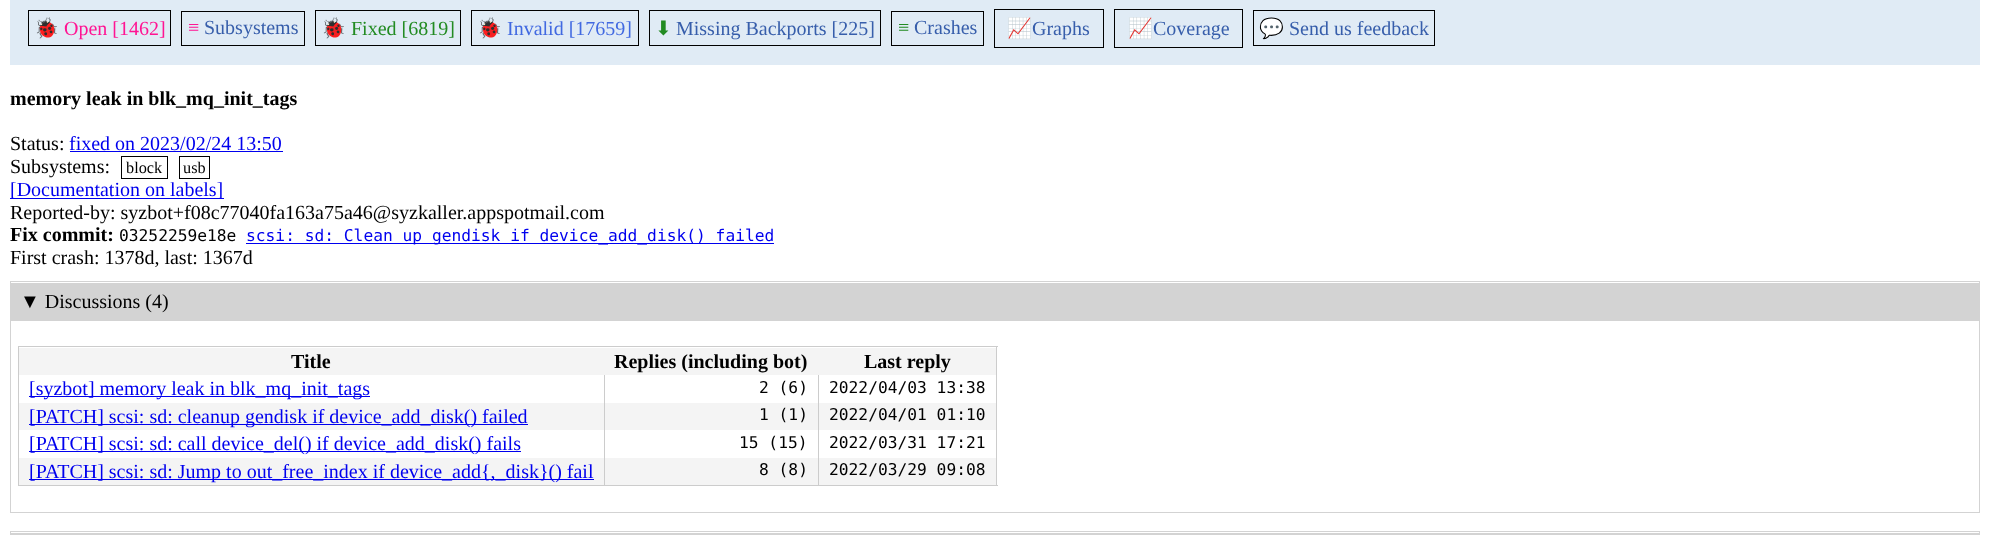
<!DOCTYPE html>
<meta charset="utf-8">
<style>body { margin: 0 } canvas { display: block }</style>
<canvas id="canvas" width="1990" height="535"></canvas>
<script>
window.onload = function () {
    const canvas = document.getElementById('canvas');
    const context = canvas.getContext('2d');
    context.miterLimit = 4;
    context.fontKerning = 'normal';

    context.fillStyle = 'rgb(255, 255, 255)';
    context.fillRect(0, 0, 1990, 535);
    context.fillStyle = 'rgb(224, 235, 245)';
    context.fillRect(10, 0, 1970, 65);
    context.strokeStyle = 'rgb(0, 0, 0)';
    context.strokeRect(28.5, 10.5, 142, 35);
    context.strokeRect(181.5, 11.5, 123, 34);
    context.strokeRect(315.5, 10.5, 145, 35);
    context.strokeRect(471.5, 10.5, 167, 35);
    context.strokeRect(649.5, 10.5, 231, 35);
    context.strokeRect(891.5, 11.5, 92, 34);
    context.strokeRect(994.5, 9.5, 109, 38);
    context.strokeRect(1114.5, 9.5, 128, 38);
    context.strokeRect(1253.5, 10.5, 181, 35);
    context.fillStyle = 'rgb(0, 0, 238)';
    context.fillRect(70, 151, 213, 1);
    context.strokeRect(121.5, 156.5, 46, 22);
    context.strokeRect(179.5, 156.5, 30, 22);
    context.fillRect(10, 198, 214, 1);
    context.fillRect(246, 243, 528, 1);
    context.strokeStyle = 'rgb(211, 211, 211)';
    context.strokeRect(10.5, 281.5, 1969, 231);
    context.fillStyle = 'rgb(211, 211, 211)';
    context.fillRect(11, 283, 1968, 38);
    context.fillStyle = 'rgb(204, 204, 204)';
    context.fillRect(18, 346, 980, 1);
    context.fillRect(996, 346, 1, 140);
    context.fillRect(18, 485, 980, 1);
    context.fillRect(18, 346, 1, 140);
    context.fillStyle = 'rgb(244, 244, 244)';
    context.fillRect(19, 348, 977, 27);
    context.fillStyle = 'rgb(0, 0, 238)';
    context.fillRect(29, 396, 341, 1);
    context.fillStyle = 'rgb(244, 244, 244)';
    context.fillRect(19, 403, 977, 27);
    context.fillStyle = 'rgb(0, 0, 238)';
    context.fillRect(29, 424, 499, 1);
    context.fillRect(29, 451, 492, 1);
    context.fillStyle = 'rgb(244, 244, 244)';
    context.fillRect(19, 458, 977, 27);
    context.fillStyle = 'rgb(0, 0, 238)';
    context.fillRect(29, 479, 565, 1);
    context.fillStyle = 'rgb(204, 204, 204)';
    context.fillRect(604, 375, 1, 110);
    context.fillRect(818, 375, 1, 110);
    context.strokeRect(10.5, 531.5, 1969, 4);
    context.fillStyle = 'rgb(211, 211, 211)';
    context.fillRect(11, 533, 1968, 2);
    context.font = '20px Noto Color Emoji';
    context.fillStyle = 'rgb(255, 20, 147)';
    context.fillText('🐞', 34, 35);
    context.font = '20px Liberation Serif';
    context.fillText('Open [1462]', 64, 35);
    context.fillText('≡', 188, 34);
    context.fillStyle = 'rgb(55, 94, 171)';
    context.fillText('Subsystems', 204, 34);
    context.font = '20px Noto Color Emoji';
    context.fillStyle = 'rgb(34, 139, 34)';
    context.fillText('🐞', 321, 35);
    context.font = '20px Liberation Serif';
    context.fillText('Fixed [6819]', 351, 35);
    context.font = '20px Noto Color Emoji';
    context.fillStyle = 'rgb(65, 105, 225)';
    context.fillText('🐞', 477, 35);
    context.font = '20px Liberation Serif';
    context.fillText('Invalid [17659]', 507, 35);
    context.font = '20px DejaVu Sans';
    context.fillStyle = 'rgb(34, 139, 34)';
    context.fillText('⬇', 655, 35);
    context.font = '20px Liberation Serif';
    context.fillStyle = 'rgb(55, 94, 171)';
    context.fillText('Missing Backports [225]', 676, 35);
    context.fillStyle = 'rgb(34, 139, 34)';
    context.fillText('≡', 898, 34);
    context.fillStyle = 'rgb(55, 94, 171)';
    context.fillText('Crashes', 914, 34);
    context.font = '20px Noto Color Emoji';
    context.fillStyle = 'rgb(255, 140, 0)';
    context.fillText('📈', 1007, 35);
    context.font = '20px Liberation Serif';
    context.fillStyle = 'rgb(55, 94, 171)';
    context.fillText('Graphs', 1032, 35);
    context.font = '20px Noto Color Emoji';
    context.fillStyle = 'rgb(255, 140, 0)';
    context.fillText('📈', 1128, 35);
    context.font = '20px Liberation Serif';
    context.fillStyle = 'rgb(55, 94, 171)';
    context.fillText('Coverage', 1153, 35);
    context.font = '20px Noto Color Emoji';
    context.fillStyle = 'rgb(34, 139, 34)';
    context.fillText('💬', 1259, 35);
    context.font = '20px Liberation Serif';
    context.fillStyle = 'rgb(55, 94, 171)';
    context.fillText('Send us feedback', 1289, 35);
    context.font = 'bold 20px Liberation Serif';
    context.fillStyle = 'rgb(0, 0, 0)';
    context.fillText('memory leak in blk_mq_init_tags', 10, 105);
    context.font = '20px Liberation Serif';
    context.fillText('Status:', 10, 150);
    context.fillStyle = 'rgb(0, 0, 238)';
    context.fillText('fixed on 2023/02/24 13:50', 69, 150);
    context.fillStyle = 'rgb(0, 0, 0)';
    context.fillText('Subsystems:', 10, 173);
    context.font = '16.25px Liberation Serif';
    context.fillText('block', 126, 173);
    context.fillText('usb', 183, 173);
    context.font = '20px Liberation Serif';
    context.fillStyle = 'rgb(0, 0, 238)';
    context.fillText('[Documentation on labels]', 10, 196);
    context.fillStyle = 'rgb(0, 0, 0)';
    context.fillText('Reported-by: syzbot+f08c77040fa163a75a46@syzkaller.appspotmail.com', 10, 219);
    context.font = 'bold 20px Liberation Serif';
    context.fillText('Fix commit:', 10, 241);
    context.font = '16.25px DejaVu Sans Mono';
    context.fillText('03252259e18e', 119, 241);
    context.fillStyle = 'rgb(0, 0, 238)';
    context.fillText('scsi: sd: Clean up gendisk if device_add_disk() failed', 246, 241);
    context.font = '20px Liberation Serif';
    context.fillStyle = 'rgb(0, 0, 0)';
    context.fillText('First crash: 1378d, last: 1367d', 10, 264);
    context.fillText('▼ Discussions (4)', 20, 308);
    context.font = 'bold 20px Liberation Serif';
    context.fillText('Title', 291, 368);
    context.fillText('Replies (including bot)', 614, 368);
    context.fillText('Last reply', 864, 368);
    context.font = '20px Liberation Serif';
    context.fillStyle = 'rgb(0, 0, 238)';
    context.fillText('[syzbot] memory leak in blk_mq_init_tags', 29, 395);
    context.font = '16.25px DejaVu Sans Mono';
    context.fillStyle = 'rgb(0, 0, 0)';
    context.fillText('2 (6)', 759, 393);
    context.fillText('2022/04/03 13:38', 829, 393);
    context.font = '20px Liberation Serif';
    context.fillStyle = 'rgb(0, 0, 238)';
    context.fillText('[PATCH] scsi: sd: cleanup gendisk if device_add_disk() failed', 29, 423);
    context.font = '16.25px DejaVu Sans Mono';
    context.fillStyle = 'rgb(0, 0, 0)';
    context.fillText('1 (1)', 759, 420);
    context.fillText('2022/04/01 01:10', 829, 420);
    context.font = '20px Liberation Serif';
    context.fillStyle = 'rgb(0, 0, 238)';
    context.fillText('[PATCH] scsi: sd: call device_del() if device_add_disk() fails', 29, 450);
    context.font = '16.25px DejaVu Sans Mono';
    context.fillStyle = 'rgb(0, 0, 0)';
    context.fillText('15 (15)', 739, 448);
    context.fillText('2022/03/31 17:21', 829, 448);
    context.font = '20px Liberation Serif';
    context.fillStyle = 'rgb(0, 0, 238)';
    context.fillText('[PATCH] scsi: sd: Jump to out_free_index if device_add{,_disk}() fail', 29, 478);
    context.font = '16.25px DejaVu Sans Mono';
    context.fillStyle = 'rgb(0, 0, 0)';
    context.fillText('8 (8)', 759, 475);
    context.fillText('2022/03/29 09:08', 829, 475);
};
</script>
